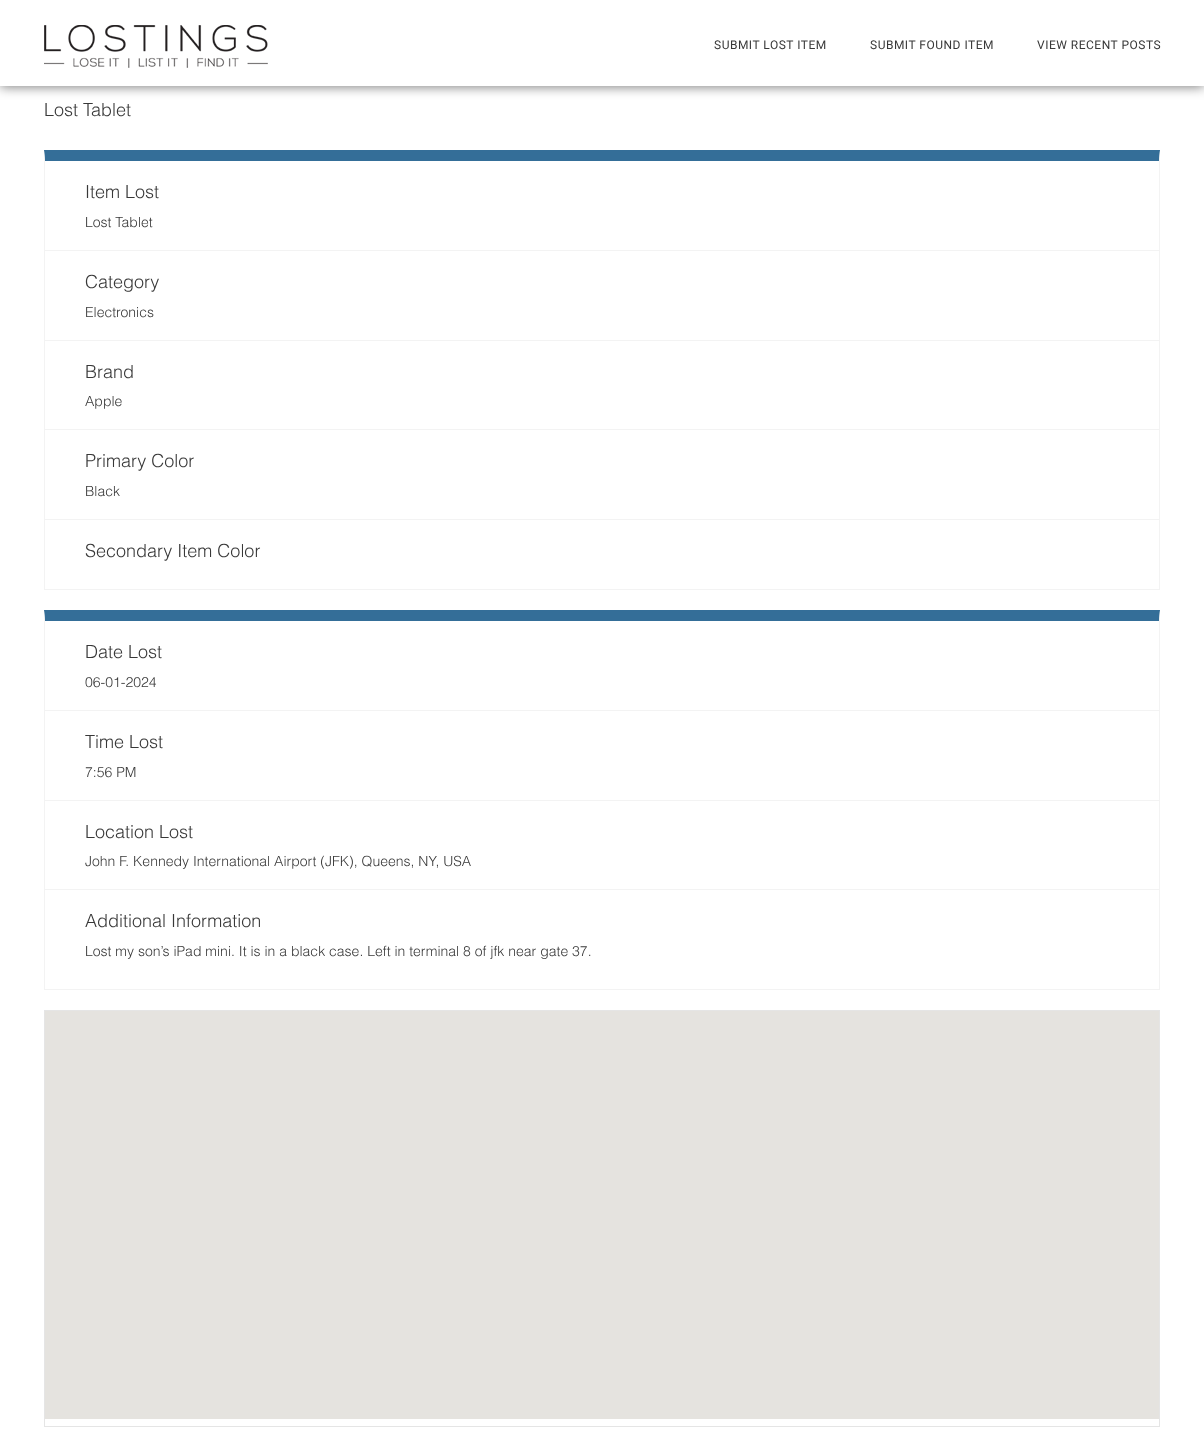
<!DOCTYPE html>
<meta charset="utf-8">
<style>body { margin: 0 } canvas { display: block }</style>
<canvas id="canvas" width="1204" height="1442"></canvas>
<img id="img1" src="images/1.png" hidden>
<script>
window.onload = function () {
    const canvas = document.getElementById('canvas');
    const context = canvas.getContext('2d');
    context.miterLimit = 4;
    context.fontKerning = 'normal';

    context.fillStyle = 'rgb(255, 255, 255)';
    context.fillRect(0, 0, 1204, 1442);
    context.fillStyle = 'rgba(0, 0, 0, 0.5)';
    context.filter = 'blur(6px)';
    context.beginPath();
    context.rect(0, 1, 1204, 86);
    context.fill();
    context.filter = 'none';
    context.fillStyle = 'rgb(255, 255, 255)';
    context.fillRect(0, 0, 1204, 86);
    context.drawImage(document.getElementById('img1'), 44, 25, 224, 43);
    context.fillStyle = 'rgb(52, 110, 152)';
    context.beginPath();
    context.moveTo(44, 150);
    context.lineTo(1160, 150);
    context.lineTo(1159, 161);
    context.lineTo(45, 161);
    context.closePath();
    context.fill();
    context.fillStyle = 'rgb(243, 243, 243)';
    context.beginPath();
    context.moveTo(1160, 150);
    context.lineTo(1160, 590);
    context.lineTo(1159, 589);
    context.lineTo(1159, 161);
    context.closePath();
    context.fill();
    context.fillRect(44, 589, 1116, 1);
    context.beginPath();
    context.moveTo(44, 590);
    context.lineTo(44, 150);
    context.lineTo(45, 161);
    context.lineTo(45, 589);
    context.closePath();
    context.fill();
    context.fillRect(45, 250, 1114, 1);
    context.fillRect(45, 340, 1114, 1);
    context.fillRect(45, 429, 1114, 1);
    context.fillRect(45, 519, 1114, 1);
    context.fillStyle = 'rgb(52, 110, 152)';
    context.beginPath();
    context.moveTo(44, 610);
    context.lineTo(1160, 610);
    context.lineTo(1159, 621);
    context.lineTo(45, 621);
    context.closePath();
    context.fill();
    context.fillStyle = 'rgb(243, 243, 243)';
    context.beginPath();
    context.moveTo(1160, 610);
    context.lineTo(1160, 990);
    context.lineTo(1159, 989);
    context.lineTo(1159, 621);
    context.closePath();
    context.fill();
    context.fillRect(44, 989, 1116, 1);
    context.beginPath();
    context.moveTo(44, 990);
    context.lineTo(44, 610);
    context.lineTo(45, 621);
    context.lineTo(45, 989);
    context.closePath();
    context.fill();
    context.fillRect(45, 710, 1114, 1);
    context.fillRect(45, 800, 1114, 1);
    context.fillRect(45, 889, 1114, 1);
    context.strokeStyle = 'rgb(229, 229, 229)';
    context.strokeRect(44.5, 1010.5, 1115, 416);
    context.fillStyle = 'rgb(229, 227, 223)';
    context.fillRect(45, 1011, 1114, 408);
    context.letterSpacing = '0.5px';
    context.font = '12px Roboto';
    context.fillStyle = 'rgb(56, 56, 56)';
    context.fillText('SUBMIT LOST ITEM', 714, 49);
    context.fillText('SUBMIT FOUND ITEM', 870, 49);
    context.fillText('VIEW RECENT POSTS', 1037, 49);
    context.letterSpacing = '0px';
    context.font = '300 18px Helvetica';
    context.fillText('Lost Tablet', 44, 116);
    context.fillText('Item Lost', 85, 198);
    context.font = '300 14px Helvetica';
    context.fillText('Lost Tablet', 85, 227);
    context.font = '300 18px Helvetica';
    context.fillText('Category', 85, 288);
    context.font = '300 14px Helvetica';
    context.fillText('Electronics', 85, 317);
    context.font = '300 18px Helvetica';
    context.fillText('Brand', 85, 378);
    context.font = '300 14px Helvetica';
    context.fillText('Apple', 85, 406);
    context.font = '300 18px Helvetica';
    context.fillText('Primary Color', 85, 467);
    context.font = '300 14px Helvetica';
    context.fillText('Black', 85, 496);
    context.font = '300 18px Helvetica';
    context.fillText('Secondary Item Color', 85, 557);
    context.fillText('Date Lost', 85, 658);
    context.font = '300 14px Helvetica';
    context.fillText('06-01-2024', 85, 687);
    context.font = '300 18px Helvetica';
    context.fillText('Time Lost', 85, 748);
    context.font = '300 14px Helvetica';
    context.fillText('7:56 PM', 85, 777);
    context.font = '300 18px Helvetica';
    context.fillText('Location Lost', 85, 838);
    context.font = '300 14px Helvetica';
    context.fillText('John F. Kennedy International Airport (JFK), Queens, NY, USA', 85, 866);
    context.font = '300 18px Helvetica';
    context.fillText('Additional Information', 85, 927);
    context.font = '300 14px Helvetica';
    context.fillText('Lost my son’s iPad mini. It is in a black case. Left in terminal 8 of jfk near gate 37.', 85, 956);
};
</script>
